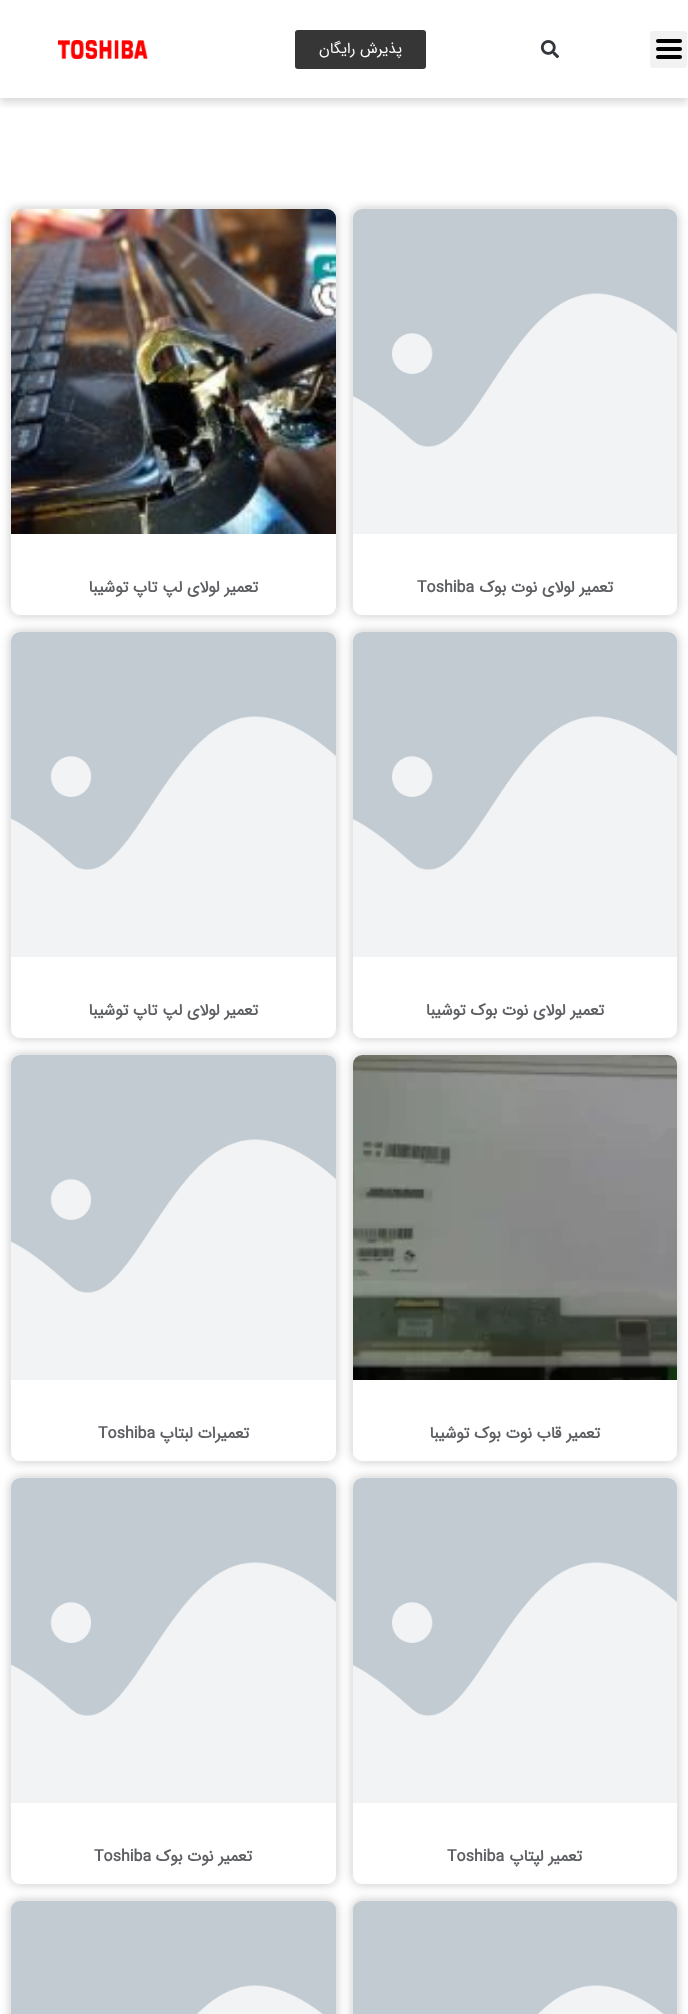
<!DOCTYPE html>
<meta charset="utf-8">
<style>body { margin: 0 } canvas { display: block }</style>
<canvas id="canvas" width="688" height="2014"></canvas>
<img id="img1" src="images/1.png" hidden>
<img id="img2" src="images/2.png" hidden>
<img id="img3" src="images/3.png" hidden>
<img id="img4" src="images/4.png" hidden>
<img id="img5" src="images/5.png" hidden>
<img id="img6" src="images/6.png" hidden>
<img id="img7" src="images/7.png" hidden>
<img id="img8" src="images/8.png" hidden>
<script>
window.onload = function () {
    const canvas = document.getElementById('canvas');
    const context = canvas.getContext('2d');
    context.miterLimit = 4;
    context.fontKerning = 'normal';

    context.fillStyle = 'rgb(255, 255, 255)';
    context.fillRect(0, 0, 688, 2014);
    context.save();
    context.beginPath();
    context.rect(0, 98, 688, 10);
    context.clip();
    context.fillStyle = 'rgba(0, 0, 0, 0.17)';
    context.filter = 'blur(5px)';
    context.beginPath();
    context.rect(0, 4, 688, 98);
    context.fill();
    context.filter = 'none';
    context.restore();
    context.fillStyle = 'rgb(242, 242, 242)';
    context.beginPath();
    context.roundRect(650, 31, 37, 37, 3);
    context.fill();
    context.fillStyle = 'rgb(0, 0, 0)';
    context.beginPath();
    context.roundRect(656, 47, 26, 4, 2);
    context.fill();
    context.beginPath();
    context.roundRect(656, 39, 26, 4, 2);
    context.fill();
    context.beginPath();
    context.roundRect(656, 55, 26, 4, 2);
    context.fill();
    context.drawImage(document.getElementById('img1'), 540, 40, 19, 19);
    context.fillStyle = 'rgb(54, 54, 54)';
    context.beginPath();
    context.roundRect(295, 30, 131, 39, 3);
    context.fill();
    context.drawImage(document.getElementById('img2'), 58, 40, 90, 19);
    context.save();
    context.beginPath();
    context.moveTo(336, 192);
    context.lineTo(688, 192);
    context.lineTo(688, 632);
    context.lineTo(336, 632);
    context.closePath();
    context.moveTo(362, 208);
    context.lineTo(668, 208);
    context.bezierCurveTo(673.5, 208, 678, 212.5, 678, 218);
    context.lineTo(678, 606);
    context.bezierCurveTo(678, 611.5, 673.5, 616, 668, 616);
    context.lineTo(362, 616);
    context.bezierCurveTo(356.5, 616, 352, 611.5, 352, 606);
    context.lineTo(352, 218);
    context.bezierCurveTo(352, 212.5, 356.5, 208, 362, 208);
    context.closePath();
    context.clip('evenodd');
    context.fillStyle = 'rgba(0, 0, 0, 0.21)';
    context.filter = 'blur(5px)';
    context.beginPath();
    context.roundRect(352, 208, 326, 408, 10);
    context.fill();
    context.filter = 'none';
    context.restore();
    context.beginPath();
    context.roundRect(352.5, 208.5, 325, 407, 9.5);
    context.strokeStyle = 'rgb(230, 230, 230)';
    context.stroke();
    context.drawImage(document.getElementById('img3'), 353, 209, 324, 325);
    context.save();
    context.beginPath();
    context.moveTo(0, 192);
    context.lineTo(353, 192);
    context.lineTo(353, 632);
    context.lineTo(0, 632);
    context.closePath();
    context.moveTo(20, 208);
    context.lineTo(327, 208);
    context.bezierCurveTo(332.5, 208, 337, 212.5, 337, 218);
    context.lineTo(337, 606);
    context.bezierCurveTo(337, 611.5, 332.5, 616, 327, 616);
    context.lineTo(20, 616);
    context.bezierCurveTo(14.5, 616, 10, 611.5, 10, 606);
    context.lineTo(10, 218);
    context.bezierCurveTo(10, 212.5, 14.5, 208, 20, 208);
    context.closePath();
    context.clip('evenodd');
    context.fillStyle = 'rgba(0, 0, 0, 0.21)';
    context.filter = 'blur(5px)';
    context.beginPath();
    context.roundRect(10, 208, 327, 408, 10);
    context.fill();
    context.filter = 'none';
    context.restore();
    context.beginPath();
    context.roundRect(10.5, 208.5, 326, 407, 9.5);
    context.stroke();
    context.drawImage(document.getElementById('img4'), 11, 209, 325, 325);
    context.save();
    context.beginPath();
    context.moveTo(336, 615);
    context.lineTo(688, 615);
    context.lineTo(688, 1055);
    context.lineTo(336, 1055);
    context.closePath();
    context.moveTo(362, 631);
    context.lineTo(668, 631);
    context.bezierCurveTo(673.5, 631, 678, 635.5, 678, 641);
    context.lineTo(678, 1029);
    context.bezierCurveTo(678, 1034.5, 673.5, 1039, 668, 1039);
    context.lineTo(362, 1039);
    context.bezierCurveTo(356.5, 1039, 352, 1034.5, 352, 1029);
    context.lineTo(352, 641);
    context.bezierCurveTo(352, 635.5, 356.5, 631, 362, 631);
    context.closePath();
    context.clip('evenodd');
    context.fillStyle = 'rgba(0, 0, 0, 0.21)';
    context.filter = 'blur(5px)';
    context.beginPath();
    context.roundRect(352, 631, 326, 408, 10);
    context.fill();
    context.filter = 'none';
    context.restore();
    context.beginPath();
    context.roundRect(352.5, 631.5, 325, 407, 9.5);
    context.stroke();
    context.drawImage(document.getElementById('img3'), 353, 632, 324, 325);
    context.save();
    context.beginPath();
    context.moveTo(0, 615);
    context.lineTo(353, 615);
    context.lineTo(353, 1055);
    context.lineTo(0, 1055);
    context.closePath();
    context.moveTo(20, 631);
    context.lineTo(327, 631);
    context.bezierCurveTo(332.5, 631, 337, 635.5, 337, 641);
    context.lineTo(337, 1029);
    context.bezierCurveTo(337, 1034.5, 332.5, 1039, 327, 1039);
    context.lineTo(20, 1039);
    context.bezierCurveTo(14.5, 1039, 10, 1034.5, 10, 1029);
    context.lineTo(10, 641);
    context.bezierCurveTo(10, 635.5, 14.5, 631, 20, 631);
    context.closePath();
    context.clip('evenodd');
    context.fillStyle = 'rgba(0, 0, 0, 0.21)';
    context.filter = 'blur(5px)';
    context.beginPath();
    context.roundRect(10, 631, 327, 408, 10);
    context.fill();
    context.filter = 'none';
    context.restore();
    context.beginPath();
    context.roundRect(10.5, 631.5, 326, 407, 9.5);
    context.stroke();
    context.drawImage(document.getElementById('img5'), 11, 632, 325, 325);
    context.save();
    context.beginPath();
    context.moveTo(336, 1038);
    context.lineTo(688, 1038);
    context.lineTo(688, 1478);
    context.lineTo(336, 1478);
    context.closePath();
    context.moveTo(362, 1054);
    context.lineTo(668, 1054);
    context.bezierCurveTo(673.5, 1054, 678, 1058.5, 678, 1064);
    context.lineTo(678, 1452);
    context.bezierCurveTo(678, 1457.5, 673.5, 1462, 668, 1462);
    context.lineTo(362, 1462);
    context.bezierCurveTo(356.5, 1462, 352, 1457.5, 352, 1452);
    context.lineTo(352, 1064);
    context.bezierCurveTo(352, 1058.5, 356.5, 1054, 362, 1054);
    context.closePath();
    context.clip('evenodd');
    context.fillStyle = 'rgba(0, 0, 0, 0.21)';
    context.filter = 'blur(5px)';
    context.beginPath();
    context.roundRect(352, 1054, 326, 408, 10);
    context.fill();
    context.filter = 'none';
    context.restore();
    context.beginPath();
    context.roundRect(352.5, 1054.5, 325, 407, 9.5);
    context.stroke();
    context.drawImage(document.getElementById('img6'), 353, 1055, 324, 325);
    context.save();
    context.beginPath();
    context.moveTo(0, 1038);
    context.lineTo(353, 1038);
    context.lineTo(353, 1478);
    context.lineTo(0, 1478);
    context.closePath();
    context.moveTo(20, 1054);
    context.lineTo(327, 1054);
    context.bezierCurveTo(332.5, 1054, 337, 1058.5, 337, 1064);
    context.lineTo(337, 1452);
    context.bezierCurveTo(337, 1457.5, 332.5, 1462, 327, 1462);
    context.lineTo(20, 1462);
    context.bezierCurveTo(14.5, 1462, 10, 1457.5, 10, 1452);
    context.lineTo(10, 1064);
    context.bezierCurveTo(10, 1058.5, 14.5, 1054, 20, 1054);
    context.closePath();
    context.clip('evenodd');
    context.fillStyle = 'rgba(0, 0, 0, 0.21)';
    context.filter = 'blur(5px)';
    context.beginPath();
    context.roundRect(10, 1054, 327, 408, 10);
    context.fill();
    context.filter = 'none';
    context.restore();
    context.beginPath();
    context.roundRect(10.5, 1054.5, 326, 407, 9.5);
    context.stroke();
    context.drawImage(document.getElementById('img5'), 11, 1055, 325, 325);
    context.save();
    context.beginPath();
    context.moveTo(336, 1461);
    context.lineTo(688, 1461);
    context.lineTo(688, 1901);
    context.lineTo(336, 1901);
    context.closePath();
    context.moveTo(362, 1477);
    context.lineTo(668, 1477);
    context.bezierCurveTo(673.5, 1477, 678, 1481.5, 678, 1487);
    context.lineTo(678, 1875);
    context.bezierCurveTo(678, 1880.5, 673.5, 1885, 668, 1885);
    context.lineTo(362, 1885);
    context.bezierCurveTo(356.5, 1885, 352, 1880.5, 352, 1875);
    context.lineTo(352, 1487);
    context.bezierCurveTo(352, 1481.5, 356.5, 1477, 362, 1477);
    context.closePath();
    context.clip('evenodd');
    context.fillStyle = 'rgba(0, 0, 0, 0.21)';
    context.filter = 'blur(5px)';
    context.beginPath();
    context.roundRect(352, 1477, 326, 408, 10);
    context.fill();
    context.filter = 'none';
    context.restore();
    context.beginPath();
    context.roundRect(352.5, 1477.5, 325, 407, 9.5);
    context.stroke();
    context.drawImage(document.getElementById('img3'), 353, 1478, 324, 325);
    context.save();
    context.beginPath();
    context.moveTo(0, 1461);
    context.lineTo(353, 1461);
    context.lineTo(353, 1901);
    context.lineTo(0, 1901);
    context.closePath();
    context.moveTo(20, 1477);
    context.lineTo(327, 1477);
    context.bezierCurveTo(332.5, 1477, 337, 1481.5, 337, 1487);
    context.lineTo(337, 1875);
    context.bezierCurveTo(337, 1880.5, 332.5, 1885, 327, 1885);
    context.lineTo(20, 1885);
    context.bezierCurveTo(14.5, 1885, 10, 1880.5, 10, 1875);
    context.lineTo(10, 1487);
    context.bezierCurveTo(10, 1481.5, 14.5, 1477, 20, 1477);
    context.closePath();
    context.clip('evenodd');
    context.fillStyle = 'rgba(0, 0, 0, 0.21)';
    context.filter = 'blur(5px)';
    context.beginPath();
    context.roundRect(10, 1477, 327, 408, 10);
    context.fill();
    context.filter = 'none';
    context.restore();
    context.beginPath();
    context.roundRect(10.5, 1477.5, 326, 407, 9.5);
    context.stroke();
    context.drawImage(document.getElementById('img5'), 11, 1478, 325, 325);
    context.fillStyle = 'rgba(0, 0, 0, 0.21)';
    context.filter = 'blur(5px)';
    context.beginPath();
    context.roundRect(352, 1900, 326, 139, 10);
    context.fill();
    context.filter = 'none';
    context.beginPath();
    context.roundRect(352.5, 1900.5, 325, 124, 9.5);
    context.stroke();
    context.drawImage(document.getElementById('img7'), 353, 1901, 324, 113);
    context.filter = 'blur(5px)';
    context.beginPath();
    context.roundRect(10, 1900, 327, 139, 10);
    context.fill();
    context.filter = 'none';
    context.beginPath();
    context.roundRect(10.5, 1900.5, 326, 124, 9.5);
    context.stroke();
    context.drawImage(document.getElementById('img8'), 11, 1901, 325, 113);
    context.direction = 'rtl';
    context.font = '15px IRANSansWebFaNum';
    context.fillStyle = 'rgb(255, 255, 255)';
    context.fillText('پذیرش رایگان', 402, 53);
    context.font = 'bold 16px IRANSansWebFaNum';
    context.fillStyle = 'rgb(93, 95, 99)';
    context.fillText('تعمیر لولای نوت بوک', 613, 592);
    context.direction = 'ltr';
    context.fillText('Toshiba', 417, 592);
    context.direction = 'rtl';
    context.fillText('تعمیر لولای لپ تاپ توشیبا', 258, 592);
    context.fillText('تعمیر لولای نوت بوک توشیبا', 604, 1015);
    context.fillText('تعمیر لولای لپ تاپ توشیبا', 258, 1015);
    context.fillText('تعمیر قاب نوت بوک توشیبا', 600, 1438);
    context.fillText('تعمیرات لبتاپ', 249, 1438);
    context.direction = 'ltr';
    context.fillText('Toshiba', 98, 1438);
    context.direction = 'rtl';
    context.fillText('تعمیر لپتاپ', 582, 1861);
    context.direction = 'ltr';
    context.fillText('Toshiba', 447, 1861);
    context.direction = 'rtl';
    context.fillText('تعمیر نوت بوک', 252, 1861);
    context.direction = 'ltr';
    context.fillText('Toshiba', 94, 1861);
};
</script>
